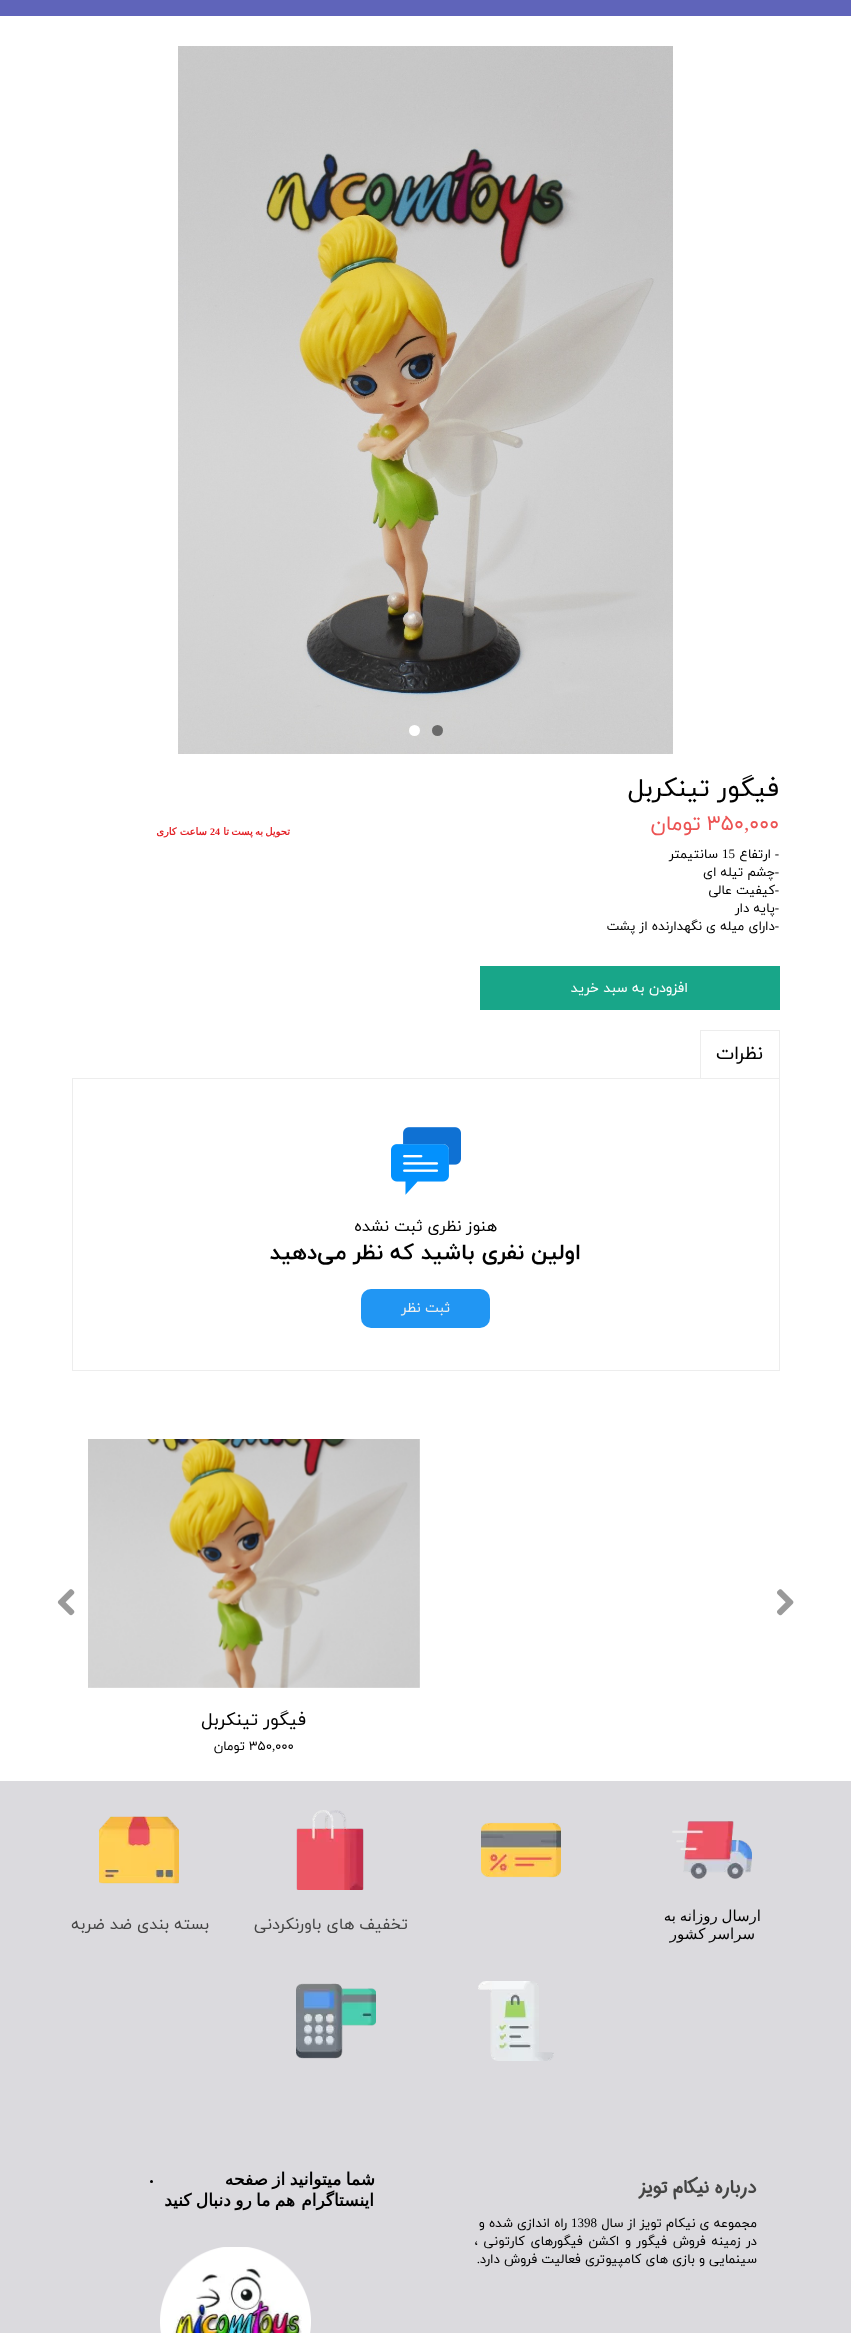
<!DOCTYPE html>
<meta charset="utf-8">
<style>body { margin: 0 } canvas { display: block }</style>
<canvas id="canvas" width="851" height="2333"></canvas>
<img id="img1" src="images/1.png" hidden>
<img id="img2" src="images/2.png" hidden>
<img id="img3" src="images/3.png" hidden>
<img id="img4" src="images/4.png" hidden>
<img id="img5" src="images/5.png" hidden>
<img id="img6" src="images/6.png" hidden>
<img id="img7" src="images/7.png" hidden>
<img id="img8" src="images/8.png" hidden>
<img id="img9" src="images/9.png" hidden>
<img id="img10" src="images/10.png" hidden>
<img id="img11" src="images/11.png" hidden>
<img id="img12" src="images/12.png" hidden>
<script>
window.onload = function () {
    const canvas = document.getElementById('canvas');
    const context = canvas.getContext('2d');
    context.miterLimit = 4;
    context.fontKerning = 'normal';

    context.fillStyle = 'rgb(255, 255, 255)';
    context.fillRect(0, 0, 851, 2333);
    context.fillStyle = 'rgb(95, 100, 186)';
    context.fillRect(0, 0, 851, 16);
    context.drawImage(document.getElementById('img1'), 178, 46, 495, 708);
    context.fillStyle = 'rgba(0, 0, 0, 0.49)';
    context.beginPath();
    context.arc(437.5, 730.5, 5.5, 0, 2 * Math.PI);
    context.fill();
    context.fillStyle = 'rgba(255, 255, 255, 0.99)';
    context.beginPath();
    context.arc(414.5, 730.5, 5.5, 0, 2 * Math.PI);
    context.fill();
    context.fillStyle = 'rgb(24, 166, 137)';
    context.fillRect(480, 966, 300, 44);
    context.fillStyle = 'rgb(237, 237, 237)';
    context.fillRect(700, 1030, 80, 1);
    context.fillRect(779, 1030, 1, 48);
    context.fillRect(700, 1030, 1, 48);
    context.strokeStyle = 'rgb(237, 237, 237)';
    context.strokeRect(72.5, 1078.5, 707, 292);
    context.drawImage(document.getElementById('img2'), 391, 1127, 70, 68);
    context.fillStyle = 'rgb(33, 150, 243)';
    context.beginPath();
    context.roundRect(361, 1289, 129, 39, 10);
    context.fill();
    context.drawImage(document.getElementById('img3'), 777, 1589, 17, 27);
    context.drawImage(document.getElementById('img4'), 57, 1589, 18, 27);
    context.drawImage(document.getElementById('img5'), 88, 1439, 332, 249);
    context.fillStyle = 'rgb(219, 218, 222)';
    context.fillRect(0, 1781, 851, 552);
    context.drawImage(document.getElementById('img6'), 481, 1822, 80, 56);
    context.drawImage(document.getElementById('img7'), 672, 1821, 80, 58);
    context.drawImage(document.getElementById('img8'), 296, 1810, 68, 80);
    context.drawImage(document.getElementById('img9'), 99, 1816, 80, 68);
    context.drawImage(document.getElementById('img10'), 478, 1981, 76, 80);
    context.drawImage(document.getElementById('img11'), 296, 1983, 80, 76);
    context.fillStyle = 'rgb(0, 0, 0)';
    context.beginPath();
    context.arc(151.5, 2181.5, 1.5, 0, 2 * Math.PI);
    context.fill();
    context.drawImage(document.getElementById('img12'), 160, 2247, 151, 86);
    context.direction = 'rtl';
    context.font = '26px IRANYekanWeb';
    context.fillText('فیگور تینکربل', 779, 796);
    context.direction = 'ltr';
    context.font = '21px IRANYekanWeb';
    context.fillStyle = 'rgb(236, 83, 83)';
    context.fillText('۰۰۰', 749, 830);
    context.fillText('۳۵۰', 707, 830);
    context.direction = 'rtl';
    context.fillText('تومان', 701, 830);
    context.direction = 'ltr';
    context.font = '21px Liberation Serif';
    context.fillText(',', 744, 830);
    context.direction = 'rtl';
    context.font = '13px Liberation Serif';
    context.fillStyle = 'rgb(0, 0, 0)';
    context.fillText('-', 779, 858);
    context.font = '13px IRANYekanWeb';
    context.fillText('ارتفاع', 771, 858);
    context.direction = 'ltr';
    context.font = '13px Liberation Serif';
    context.fillText('15', 722, 858);
    context.direction = 'rtl';
    context.font = '13px IRANYekanWeb';
    context.fillText('سانتیمتر', 718, 858);
    context.font = '13px Liberation Serif';
    context.fillText('-', 779, 876);
    context.font = '13px IRANYekanWeb';
    context.fillText('چشم تیله ای', 775, 876);
    context.fillText('کیفیت عالی', 775, 894);
    context.font = '13px Liberation Serif';
    context.fillText('-', 779, 894);
    context.fillText('-', 779, 912);
    context.font = '13px IRANYekanWeb';
    context.fillText('پایه دار', 775, 912);
    context.font = '13px Liberation Serif';
    context.fillText('-', 779, 930);
    context.font = '13px IRANYekanWeb';
    context.fillText('دارای میله ی نگهدارنده از پشت', 775, 930);
    context.font = '14px IRANYekanWeb';
    context.fillStyle = 'rgb(255, 255, 255)';
    context.fillText('افزودن به سبد خرید', 688, 992);
    context.font = '19px IRANYekanWeb';
    context.fillStyle = 'rgb(0, 0, 0)';
    context.fillText('نظرات', 763, 1059);
    context.font = '16px IRANYekanWeb';
    context.fillText('هنوز نظری ثبت نشده', 497, 1231);
    context.font = 'bold 22px IRANYekanWeb';
    context.fillText('اولین نفری باشید که نظر می‌دهید', 581, 1259);
    context.font = '14px IRANYekanWeb';
    context.fillStyle = 'rgb(237, 239, 240)';
    context.fillText('ثبت نظر', 450, 1312);
    context.wordSpacing = '-1px';
    context.font = 'bold 10px DejaVu Sans';
    context.fillStyle = 'rgb(226, 28, 33)';
    context.fillText('تحویل به پست تا', 290, 835);
    context.wordSpacing = '0px';
    context.direction = 'ltr';
    context.font = 'bold 10px Liberation Serif';
    context.fillText('24', 210, 835);
    context.direction = 'rtl';
    context.font = 'bold 10px DejaVu Sans';
    context.fillText('ساعت کاری', 207, 835);
    context.font = '18px IRANYekanWeb';
    context.fillStyle = 'rgb(0, 0, 0)';
    context.fillText('فیگور تینکربل', 306, 1725);
    context.direction = 'ltr';
    context.font = '13px IRANYekanWeb';
    context.fillText('۰۰۰', 275, 1750);
    context.fillText('۳۵۰', 249, 1750);
    context.direction = 'rtl';
    context.fillText('تومان', 245, 1750);
    context.direction = 'ltr';
    context.font = '13px Liberation Serif';
    context.fillText(',', 272, 1750);
    context.wordSpacing = '-1px';
    context.direction = 'rtl';
    context.font = '15px DejaVu Sans';
    context.fillText('ارسال روزانه به', 761, 1921);
    context.fillText('سراسر کشور', 755, 1939);
    context.wordSpacing = '0px';
    context.font = '16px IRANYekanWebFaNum';
    context.fillStyle = 'rgb(68, 68, 68)';
    context.fillText('تخفیف های باورنکردنی', 408, 1929);
    context.fillText('بسته بندی ضد ضربه', 209, 1929);
    context.font = 'bold 18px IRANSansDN';
    context.fillText('درباره نیکام تویز', 757, 2193);
    context.font = '13px IRANYekanWeb';
    context.fillStyle = 'rgb(0, 0, 0)';
    context.fillText('مجموعه ی نیکام تویز از سال', 757, 2227);
    context.direction = 'ltr';
    context.font = '13px Liberation Serif';
    context.fillText('1398', 571, 2227);
    context.direction = 'rtl';
    context.font = '13px IRANYekanWeb';
    context.fillText('راه اندازی شده و', 567, 2227);
    context.wordSpacing = '1.5px';
    context.fillText('در زمینه فروش فیگور و اکشن فیگورهای کارتونی ،', 757, 2245);
    context.wordSpacing = '0px';
    context.fillText('سینمایی و بازی های کامپیوتری فعالیت فروش دارد', 757, 2263);
    context.font = '13px Liberation Serif';
    context.fillText('.', 480, 2263);
    context.wordSpacing = '-1px';
    context.font = 'bold 17px DejaVu Sans';
    context.fillText('شما میتوانید از صفحه', 375, 2185);
    context.wordSpacing = '0px';
    context.fillText('اینستاگرام', 374, 2206);
    context.wordSpacing = '-1px';
    context.fillText('هم ما رو دنبال کنید', 295, 2206);
};
</script>
